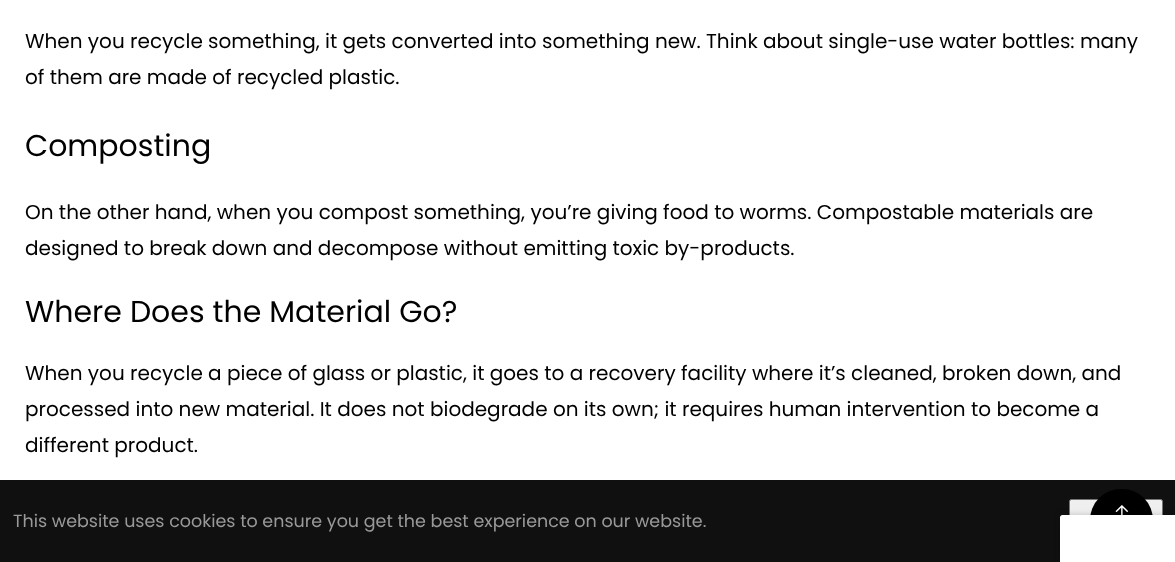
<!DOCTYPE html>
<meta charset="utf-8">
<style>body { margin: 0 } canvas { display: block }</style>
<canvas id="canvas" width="1175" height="562"></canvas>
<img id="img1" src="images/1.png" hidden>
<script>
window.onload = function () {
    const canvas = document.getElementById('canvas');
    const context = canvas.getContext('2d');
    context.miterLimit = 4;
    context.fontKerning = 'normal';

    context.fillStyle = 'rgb(255, 255, 255)';
    context.fillRect(0, 0, 1175, 562);
    context.fillStyle = 'rgb(16, 16, 16)';
    context.fillRect(0, 480, 1175, 82);
    context.fillStyle = 'rgb(239, 239, 239)';
    context.beginPath();
    context.roundRect(1069.5, 499.5, 93, 44, 2);
    context.fill();
    context.strokeStyle = 'rgb(118, 118, 118)';
    context.stroke();
    context.fillStyle = 'rgb(0, 0, 0)';
    context.beginPath();
    context.roundRect(1090, 489, 63, 62, 31);
    context.fill();
    context.drawImage(document.getElementById('img1'), 1115, 505, 14, 10);
    context.fillStyle = 'rgba(0, 0, 0, 0.2)';
    context.filter = 'blur(3px)';
    context.beginPath();
    context.roundRect(1060, 515, 115, 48, 2.5);
    context.fill();
    context.filter = 'none';
    context.fillStyle = 'rgb(255, 255, 255)';
    context.beginPath();
    context.moveTo(1062.5, 515);
    context.lineTo(1175, 515);
    context.lineTo(1175, 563);
    context.lineTo(1060, 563);
    context.lineTo(1060, 517.5);
    context.bezierCurveTo(1060, 516, 1061, 515, 1062.5, 515);
    context.closePath();
    context.fill();
    context.font = '20px Poppins';
    context.fillStyle = 'rgb(0, 0, 0)';
    context.fillText('When you recycle something, it gets converted into something new. Think about single-use water bottles: many', 25, 48);
    context.fillText('of them are made of recycled plastic.', 25, 84);
    context.font = '30px Poppins';
    context.fillText('Composting', 25, 156);
    context.font = '20px Poppins';
    context.fillText('On the other hand, when you compost something, you’re giving food to worms. Compostable materials are', 25, 219);
    context.fillText('designed to break down and decompose without emitting toxic by-products.', 25, 255);
    context.font = '30px Poppins';
    context.fillText('Where Does the Material Go?', 25, 322);
    context.font = '20px Poppins';
    context.fillText('When you recycle a piece of glass or plastic, it goes to a recovery facility where it’s cleaned, broken down, and', 25, 380);
    context.fillText('processed into new material. It does not biodegrade on its own; it requires human intervention to become a', 25, 416);
    context.fillText('different product.', 25, 452);
    context.font = '17.5px Poppins';
    context.fillStyle = 'rgb(153, 153, 153)';
    context.fillText('This website uses cookies to ensure you get the best experience on our website.', 13, 527);
};
</script>
